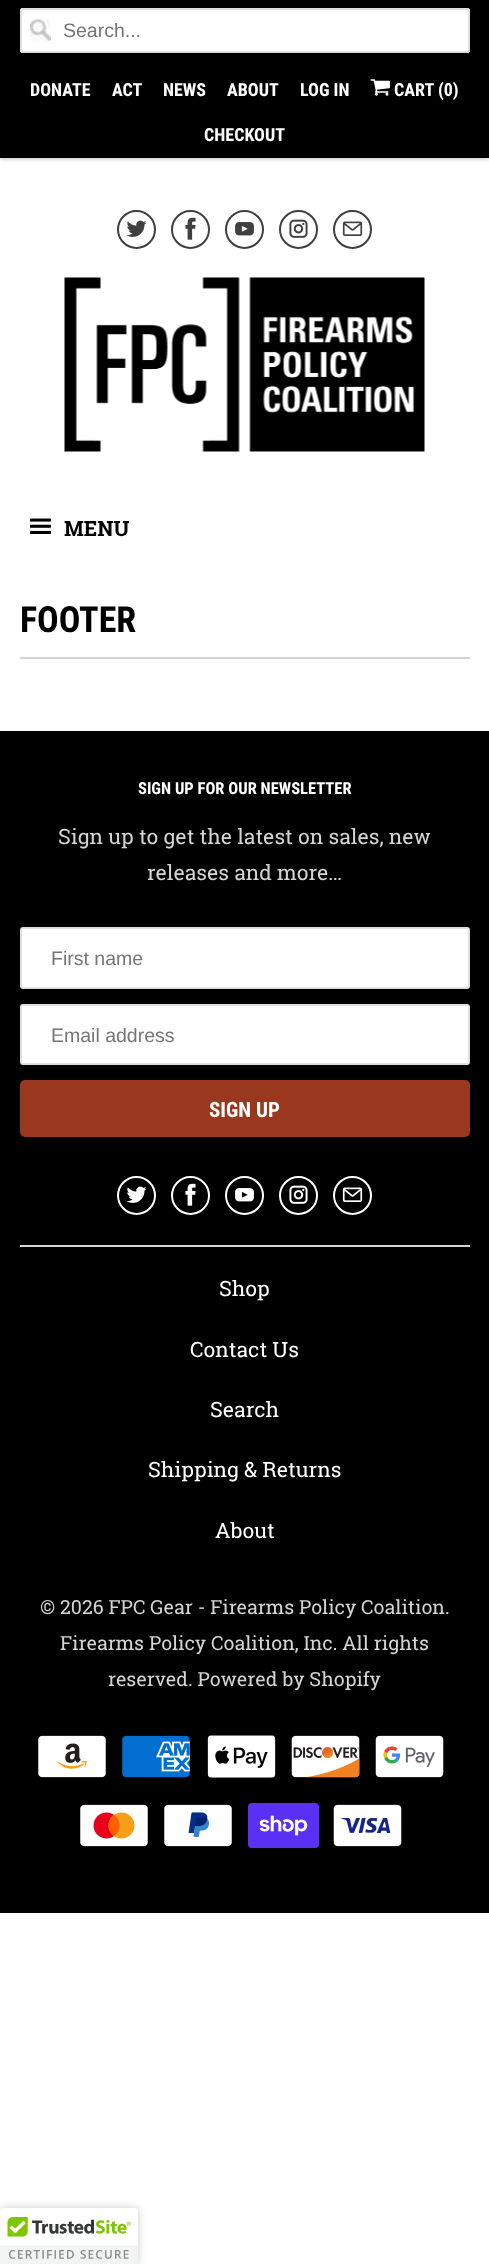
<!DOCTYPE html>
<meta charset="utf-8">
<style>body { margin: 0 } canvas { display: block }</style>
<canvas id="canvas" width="489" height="2264"></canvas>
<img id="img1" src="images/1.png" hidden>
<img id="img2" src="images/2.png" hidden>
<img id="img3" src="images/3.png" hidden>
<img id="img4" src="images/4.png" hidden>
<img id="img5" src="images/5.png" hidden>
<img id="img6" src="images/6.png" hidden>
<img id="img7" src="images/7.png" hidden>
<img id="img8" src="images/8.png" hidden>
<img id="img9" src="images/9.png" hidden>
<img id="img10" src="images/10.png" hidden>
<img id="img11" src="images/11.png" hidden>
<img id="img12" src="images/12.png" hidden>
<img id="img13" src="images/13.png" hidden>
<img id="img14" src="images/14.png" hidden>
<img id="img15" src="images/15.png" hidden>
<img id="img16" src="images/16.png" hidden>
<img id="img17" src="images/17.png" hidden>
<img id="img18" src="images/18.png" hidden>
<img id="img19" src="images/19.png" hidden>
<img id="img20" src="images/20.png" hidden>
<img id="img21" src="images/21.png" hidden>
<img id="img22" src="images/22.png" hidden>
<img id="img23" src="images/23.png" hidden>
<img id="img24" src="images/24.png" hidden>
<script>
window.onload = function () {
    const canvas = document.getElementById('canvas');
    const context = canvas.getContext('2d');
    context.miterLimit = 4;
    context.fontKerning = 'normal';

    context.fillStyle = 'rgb(255, 255, 255)';
    context.fillRect(0, 0, 489, 2264);
    context.fillStyle = 'rgba(0, 0, 0, 0.25)';
    context.filter = 'blur(2px)';
    context.beginPath();
    context.rect(0, 2, 489, 157);
    context.fill();
    context.filter = 'none';
    context.fillStyle = 'rgb(0, 0, 0)';
    context.fillRect(0, 0, 489, 158);
    context.fillStyle = 'rgb(255, 255, 255)';
    context.beginPath();
    context.roundRect(20, 8, 450, 45, 3);
    context.fill();
    context.drawImage(document.getElementById('img1'), 30, 19, 21, 22);
    context.beginPath();
    context.roundRect(21, 9, 448, 43, 2);
    context.strokeStyle = 'rgb(223, 223, 223)';
    context.lineWidth = 2;
    context.stroke();
    context.drawImage(document.getElementById('img2'), 370, 79, 20, 17);
    context.beginPath();
    context.arc(136.5, 229.5, 18.5, 0, 2 * Math.PI);
    context.strokeStyle = 'rgb(64, 64, 64)';
    context.stroke();
    context.drawImage(document.getElementById('img3'), 126, 220, 21, 17);
    context.beginPath();
    context.arc(190.5, 229.5, 18.5, 0, 2 * Math.PI);
    context.stroke();
    context.drawImage(document.getElementById('img4'), 185, 217, 11, 23);
    context.beginPath();
    context.arc(244.5, 229.5, 18.5, 0, 2 * Math.PI);
    context.stroke();
    context.drawImage(document.getElementById('img5'), 235, 222, 19, 14);
    context.beginPath();
    context.arc(298.5, 229.5, 18.5, 0, 2 * Math.PI);
    context.stroke();
    context.drawImage(document.getElementById('img6'), 289, 219, 19, 19);
    context.beginPath();
    context.arc(352.5, 229.5, 18.5, 0, 2 * Math.PI);
    context.stroke();
    context.drawImage(document.getElementById('img7'), 342, 221, 21, 15);
    context.drawImage(document.getElementById('img8'), 64, 277, 361, 175);
    context.drawImage(document.getElementById('img9'), 30, 518, 21, 16);
    context.fillStyle = 'rgb(211, 211, 211)';
    context.fillRect(20, 657, 450, 2);
    context.fillStyle = 'rgb(0, 0, 0)';
    context.fillRect(0, 731, 489, 1182);
    context.fillStyle = 'rgb(255, 255, 255)';
    context.beginPath();
    context.roundRect(21, 928, 448, 60, 2);
    context.fill();
    context.strokeStyle = 'rgb(223, 223, 223)';
    context.stroke();
    context.beginPath();
    context.roundRect(21, 1005, 448, 59, 2);
    context.fill();
    context.stroke();
    context.fillStyle = 'rgb(153, 56, 31)';
    context.beginPath();
    context.roundRect(21, 1081, 448, 55, 4);
    context.fill();
    context.strokeStyle = 'rgb(153, 56, 31)';
    context.stroke();
    context.beginPath();
    context.arc(136.5, 1195.5, 18.5, 0, 2 * Math.PI);
    context.strokeStyle = 'rgb(255, 255, 255)';
    context.stroke();
    context.drawImage(document.getElementById('img10'), 126, 1186, 21, 17);
    context.beginPath();
    context.arc(190.5, 1195.5, 18.5, 0, 2 * Math.PI);
    context.stroke();
    context.drawImage(document.getElementById('img11'), 185, 1183, 11, 23);
    context.beginPath();
    context.arc(244.5, 1195.5, 18.5, 0, 2 * Math.PI);
    context.stroke();
    context.drawImage(document.getElementById('img12'), 235, 1188, 19, 14);
    context.beginPath();
    context.arc(298.5, 1195.5, 18.5, 0, 2 * Math.PI);
    context.stroke();
    context.drawImage(document.getElementById('img13'), 289, 1185, 19, 19);
    context.beginPath();
    context.arc(352.5, 1195.5, 18.5, 0, 2 * Math.PI);
    context.stroke();
    context.drawImage(document.getElementById('img14'), 342, 1187, 21, 15);
    context.fillStyle = 'rgb(212, 212, 212)';
    context.fillRect(20, 1245, 450, 2);
    context.drawImage(document.getElementById('img15'), 38, 1735, 68, 43);
    context.drawImage(document.getElementById('img16'), 122, 1735, 68, 43);
    context.drawImage(document.getElementById('img17'), 207, 1735, 69, 43);
    context.drawImage(document.getElementById('img18'), 291, 1735, 69, 43);
    context.drawImage(document.getElementById('img19'), 375, 1735, 69, 43);
    context.drawImage(document.getElementById('img20'), 80, 1804, 68, 43);
    context.drawImage(document.getElementById('img21'), 164, 1804, 68, 43);
    context.drawImage(document.getElementById('img22'), 248, 1803, 72, 45);
    context.drawImage(document.getElementById('img23'), 333, 1804, 69, 43);
    context.fillStyle = 'rgba(0, 0, 0, 0.2)';
    context.filter = 'blur(4px)';
    context.beginPath();
    context.roundRect(0, 2208, 138, 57, 3);
    context.fill();
    context.filter = 'none';
    context.fillStyle = 'rgb(255, 255, 255)';
    context.beginPath();
    context.moveTo(0, 2208);
    context.lineTo(135, 2208);
    context.bezierCurveTo(136.5, 2208, 138, 2209.5, 138, 2211);
    context.lineTo(138, 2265);
    context.lineTo(0, 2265);
    context.closePath();
    context.fill();
    context.drawImage(document.getElementById('img24'), 0, 2208, 138, 56);
    context.font = '19.5px Liberation Sans';
    context.fillStyle = 'rgb(117, 117, 117)';
    context.fillText('Search...', 63, 37);
    context.font = 'bold 18px Roboto Condensed';
    context.fillStyle = 'rgb(255, 255, 255)';
    context.fillText('DONATE', 30, 96);
    context.fillText('ACT', 112, 96);
    context.fillText('NEWS', 163, 96);
    context.fillText('ABOUT', 227, 96);
    context.fillText('LOG IN', 300, 96);
    context.fillText('CART (0)', 394, 96);
    context.fillText('CHECKOUT', 204, 141);
    context.font = 'bold 21px Roboto Slab';
    context.fillStyle = 'rgb(0, 0, 0)';
    context.fillText('MENU', 64, 536);
    context.font = 'bold 36px Roboto Condensed';
    context.fillText('FOOTER', 20, 632);
    context.font = 'bold 16.5px Roboto Condensed';
    context.fillStyle = 'rgb(255, 255, 255)';
    context.fillText('SIGN UP FOR OUR NEWSLETTER', 138, 794);
    context.font = '21px Roboto Slab';
    context.fillStyle = 'rgb(212, 212, 212)';
    context.fillText('Sign up to get the latest on sales, new', 58, 844);
    context.fillText('releases and more…', 147, 880);
    context.font = '19.5px Liberation Sans';
    context.fillStyle = 'rgb(117, 117, 117)';
    context.fillText('First name', 51, 965);
    context.fillText('Email address', 51, 1042);
    context.font = 'bold 21px Roboto Condensed';
    context.fillStyle = 'rgb(255, 255, 255)';
    context.fillText('SIGN UP', 209, 1117);
    context.font = '21px Roboto Slab';
    context.fillText('Shop', 219, 1296);
    context.fillText('Contact Us', 190, 1357);
    context.fillText('Search', 210, 1417);
    context.fillText('Shipping & Returns', 148, 1477);
    context.fillText('About', 215, 1538);
    context.font = '19.5px Roboto Slab';
    context.fillStyle = 'rgb(212, 212, 212)';
    context.fillText('© 2026 FPC Gear - Firearms Policy Coalition.', 40, 1614);
    context.fillText('Firearms Policy Coalition, Inc. All rights', 60, 1650);
    context.fillText('reserved. Powered by Shopify', 108, 1686);
};
</script>
